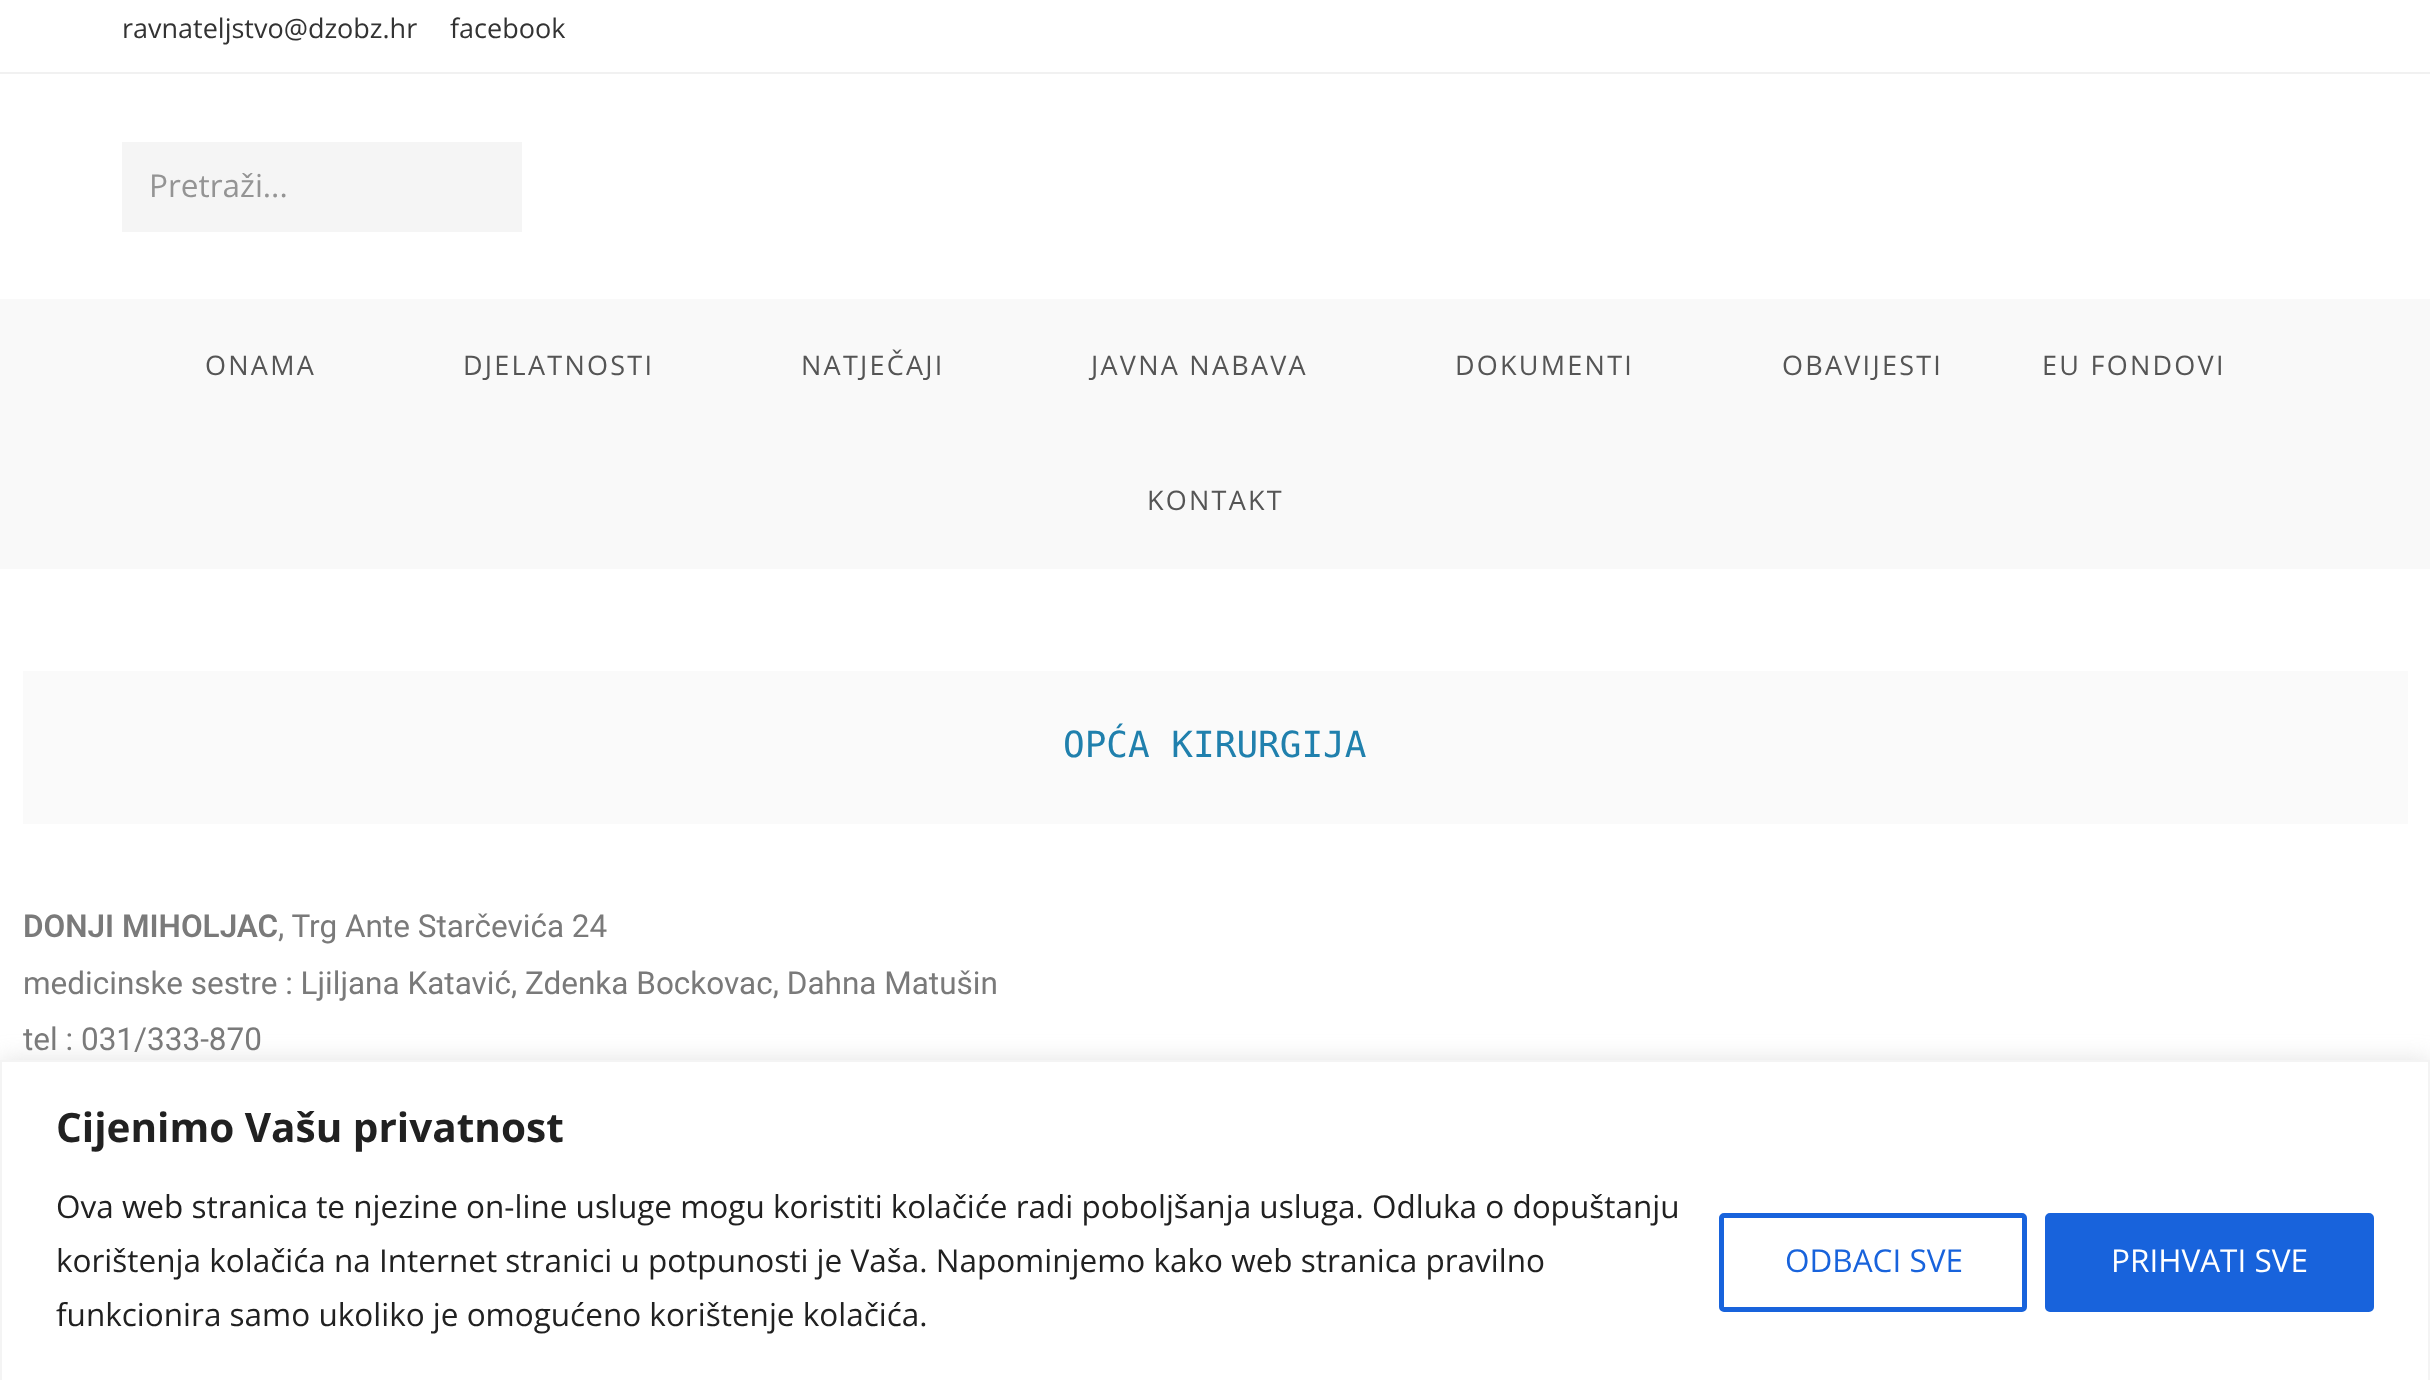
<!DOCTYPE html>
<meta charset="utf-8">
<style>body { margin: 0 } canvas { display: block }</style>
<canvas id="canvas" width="2430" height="1380"></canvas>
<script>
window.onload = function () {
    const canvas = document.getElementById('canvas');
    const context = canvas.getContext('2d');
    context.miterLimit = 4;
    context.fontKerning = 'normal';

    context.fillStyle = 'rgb(255, 255, 255)';
    context.fillRect(0, 0, 2430, 1380);
    context.fillStyle = 'rgb(241, 241, 241)';
    context.fillRect(0, 72, 2430, 2);
    context.fillStyle = 'rgb(245, 245, 245)';
    context.fillRect(122, 142, 400, 90);
    context.fillStyle = 'rgb(249, 249, 249)';
    context.fillRect(0, 299, 2430, 270);
    context.fillStyle = 'rgb(250, 250, 250)';
    context.fillRect(23, 671, 2385, 153);
    context.fillStyle = 'rgba(172, 171, 171, 0.3)';
    context.filter = 'blur(11px)';
    context.beginPath();
    context.rect(0, 1058, 2430, 321);
    context.fill();
    context.filter = 'none';
    context.fillStyle = 'rgb(255, 255, 255)';
    context.beginPath();
    context.rect(1, 1061, 2428, 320);
    context.fill();
    context.strokeStyle = 'rgb(244, 244, 244)';
    context.lineWidth = 2;
    context.stroke();
    context.beginPath();
    context.roundRect(1721.5, 1215.5, 303, 94, 2.5);
    context.strokeStyle = 'rgb(24, 99, 220)';
    context.lineWidth = 5;
    context.stroke();
    context.fillStyle = 'rgb(24, 99, 220)';
    context.beginPath();
    context.roundRect(2047.5, 1215.5, 324, 94, 2.5);
    context.fill();
    context.stroke();
    context.font = '27px Open Sans';
    context.fillStyle = 'rgb(51, 51, 51)';
    context.fillText('ravnateljstvo@dzobz.hr', 122, 38);
    context.fillText('facebook', 450, 38);
    context.font = '31.5px Open Sans';
    context.fillStyle = 'rgb(148, 148, 148)';
    context.fillText('Pretraži...', 149, 197);
    context.letterSpacing = '2.25px';
    context.font = '27px Open Sans';
    context.fillStyle = 'rgb(85, 85, 85)';
    context.fillText('ONAMA', 205, 375);
    context.fillText('DJELATNOSTI', 463, 375);
    context.fillText('NATJEČAJI', 801, 375);
    context.fillText('JAVNA NABAVA', 1091, 375);
    context.fillText('DOKUMENTI', 1455, 375);
    context.fillText('OBAVIJESTI', 1782, 375);
    context.fillText('EU FONDOVI', 2042, 375);
    context.fillText('KONTAKT', 1147, 510);
    context.letterSpacing = '0px';
    context.font = '36px DejaVu Sans Mono';
    context.fillStyle = 'rgb(32, 128, 173)';
    context.fillText('OPĆA KIRURGIJA', 1063, 757);
    context.font = '600 31.5px Roboto';
    context.fillStyle = 'rgb(122, 122, 122)';
    context.fillText('DONJI MIHOLJAC', 23, 937);
    context.font = '31.5px Roboto';
    context.fillText(', Trg Ante Starčevića 24', 278, 937);
    context.fillText('medicinske sestre : Ljiljana Katavić, Zdenka Bockovac, Dahna Matušin', 23, 994);
    context.fillText('tel : 031/333-870', 23, 1050);
    context.font = 'bold 40.5px Open Sans';
    context.fillStyle = 'rgb(33, 33, 33)';
    context.fillText('Cijenimo Vašu privatnost', 56, 1142);
    context.font = '31.5px Open Sans';
    context.fillText('Ova web stranica te njezine on-line usluge mogu koristiti kolačiće radi poboljšanja usluga. Odluka o dopuštanju', 56, 1218);
    context.fillText('korištenja kolačića na Internet stranici u potpunosti je Vaša. Napominjemo kako web stranica pravilno', 56, 1272);
    context.fillText('funkcionira samo ukoliko je omogućeno korištenje kolačića.', 56, 1326);
    context.fillStyle = 'rgb(24, 99, 220)';
    context.fillText('ODBACI SVE', 1785, 1272);
    context.fillStyle = 'rgb(255, 255, 255)';
    context.fillText('PRIHVATI SVE', 2111, 1272);
};
</script>
